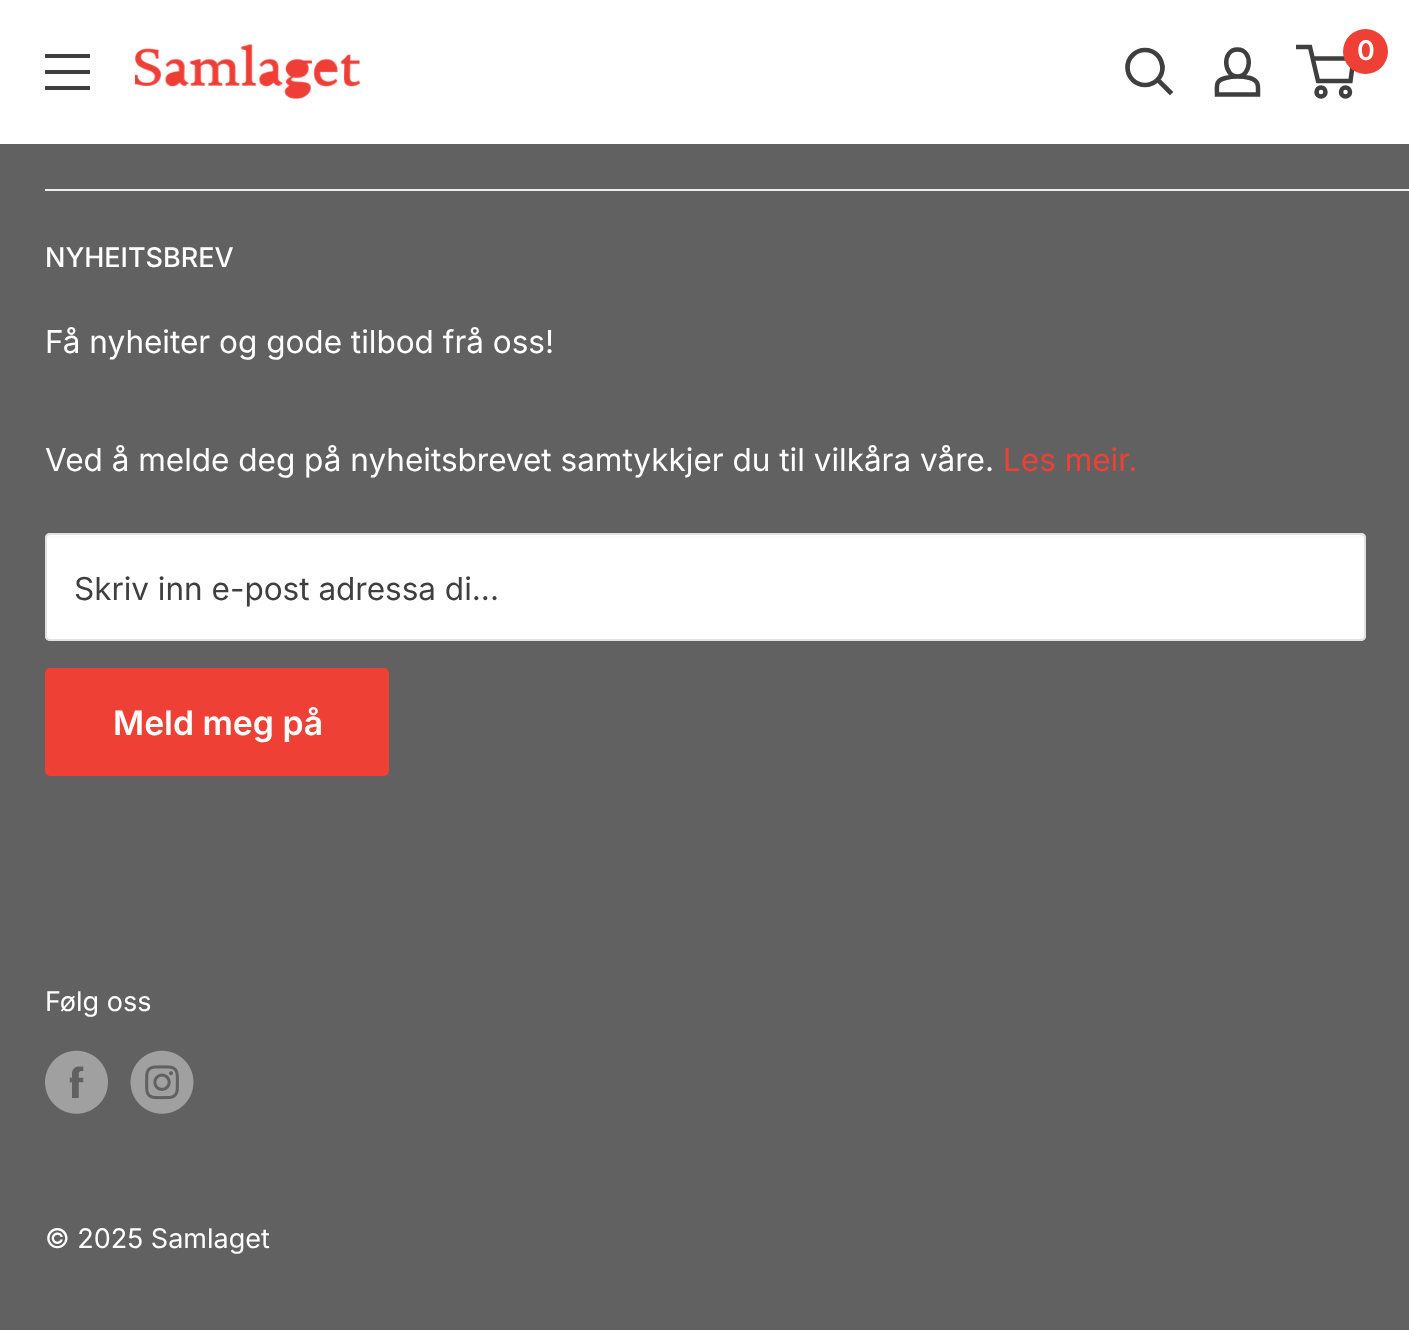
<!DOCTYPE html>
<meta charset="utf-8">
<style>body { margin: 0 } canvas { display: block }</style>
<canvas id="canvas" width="1409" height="1330"></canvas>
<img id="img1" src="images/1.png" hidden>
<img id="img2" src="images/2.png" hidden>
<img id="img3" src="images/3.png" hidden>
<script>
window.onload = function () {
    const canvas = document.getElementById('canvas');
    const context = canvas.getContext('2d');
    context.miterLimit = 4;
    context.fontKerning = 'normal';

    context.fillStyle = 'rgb(97, 97, 97)';
    context.fillRect(0, 0, 1409, 1330);
    context.fillStyle = 'rgb(255, 255, 255)';
    context.fillRect(0, 0, 1409, 144);
    context.fillStyle = 'rgb(63, 63, 63)';
    context.beginPath();
    context.moveTo(45, 86);
    context.lineTo(90, 86);
    context.lineTo(90, 90);
    context.lineTo(45, 90);
    context.closePath();
    context.moveTo(45, 54);
    context.lineTo(90, 54);
    context.lineTo(90, 58);
    context.lineTo(45, 58);
    context.closePath();
    context.moveTo(45, 70);
    context.lineTo(90, 70);
    context.lineTo(90, 74);
    context.lineTo(45, 74);
    context.closePath();
    context.fill('evenodd');
    context.drawImage(document.getElementById('img1'), 135, 44, 225, 55);
    context.beginPath();
    context.moveTo(1170, 92);
    context.lineTo(1158, 80);
    context.strokeStyle = 'rgb(63, 63, 63)';
    context.lineWidth = 4.7;
    context.lineCap = 'square';
    context.stroke();
    context.beginPath();
    context.arc(1145, 67.5, 17.5, 0, 2 * Math.PI);
    context.stroke();
    context.beginPath();
    context.moveTo(1237.5, 76.5);
    context.bezierCurveTo(1241.5, 76.5, 1246, 77, 1250, 78);
    context.bezierCurveTo(1259.5, 81, 1258, 86, 1258, 94.5);
    context.lineTo(1217, 94.5);
    context.bezierCurveTo(1217, 85.5, 1215, 80.5, 1225.5, 78);
    context.bezierCurveTo(1229.5, 77, 1233.5, 76.5, 1237.5, 76.5);
    context.closePath();
    context.moveTo(1237.5, 76.5);
    context.bezierCurveTo(1223.5, 76.5, 1221.5, 49.5, 1237.5, 49.5);
    context.bezierCurveTo(1253.5, 49.5, 1251.5, 76.5, 1237.5, 76.5);
    context.closePath();
    context.lineWidth = 4.5;
    context.lineCap = 'butt';
    context.stroke();
    context.beginPath();
    context.arc(1321, 92, 4.5, 0, 2 * Math.PI);
    context.stroke();
    context.beginPath();
    context.arc(1345.5, 92, 4.5, 0, 2 * Math.PI);
    context.stroke();
    context.beginPath();
    context.moveTo(1312.5, 58.5);
    context.lineTo(1353.5, 58.5);
    context.lineTo(1350.5, 81);
    context.lineTo(1318, 81);
    context.lineTo(1310, 47);
    context.lineTo(1296, 47);
    context.stroke();
    context.fillStyle = 'rgb(238, 64, 53)';
    context.beginPath();
    context.arc(1365.5, 51.5, 22.5, 0, 2 * Math.PI);
    context.fill();
    context.fillStyle = 'rgb(239, 239, 239)';
    context.fillRect(45, 189, 1364, 2);
    context.fillStyle = 'rgb(255, 255, 255)';
    context.beginPath();
    context.roundRect(45, 533, 1321, 108, 5);
    context.fill();
    context.fillStyle = 'rgb(251, 251, 251)';
    context.beginPath();
    context.moveTo(50, 538);
    context.lineTo(1361, 538);
    context.bezierCurveTo(1362, 538, 1364, 539, 1364, 540);
    context.bezierCurveTo(1364, 538, 1364, 536, 1362, 536);
    context.lineTo(49, 536);
    context.bezierCurveTo(47, 536, 47, 538, 47, 540);
    context.bezierCurveTo(47, 539, 48, 538, 50, 538);
    context.closePath();
    context.fill();
    context.beginPath();
    context.roundRect(46, 534, 1319, 106, 4);
    context.strokeStyle = 'rgb(226, 226, 226)';
    context.lineWidth = 2;
    context.stroke();
    context.fillStyle = 'rgb(238, 64, 53)';
    context.beginPath();
    context.roundRect(45, 668, 344, 108, 5);
    context.fill();
    context.drawImage(document.getElementById('img2'), 45, 1050, 63, 64);
    context.drawImage(document.getElementById('img3'), 130, 1050, 64, 64);
    context.font = '600 27px Inter';
    context.fillStyle = 'rgb(255, 255, 255)';
    context.fillText('0', 1357, 60);
    context.font = '500 27px Inter';
    context.fillText('NYHEITSBREV', 45, 267);
    context.font = '31.5px Inter';
    context.fillText('Få nyheiter og gode tilbod frå oss!', 45, 353);
    context.fillText('Ved å melde deg på nyheitsbrevet samtykkjer du til vilkåra våre.', 45, 471);
    context.fillStyle = 'rgb(238, 64, 53)';
    context.fillText('Les meir.', 1003, 471);
    context.fillStyle = 'rgb(63, 63, 63)';
    context.fillText('Skriv inn e-post adressa di...', 74, 600);
    context.font = '600 33.75px Inter';
    context.fillStyle = 'rgb(255, 255, 255)';
    context.fillText('Meld meg på', 113, 735);
    context.font = '27px Inter';
    context.fillText('Følg oss', 45, 1011);
    context.fillText('© 2025 Samlaget', 45, 1248);
};
</script>
